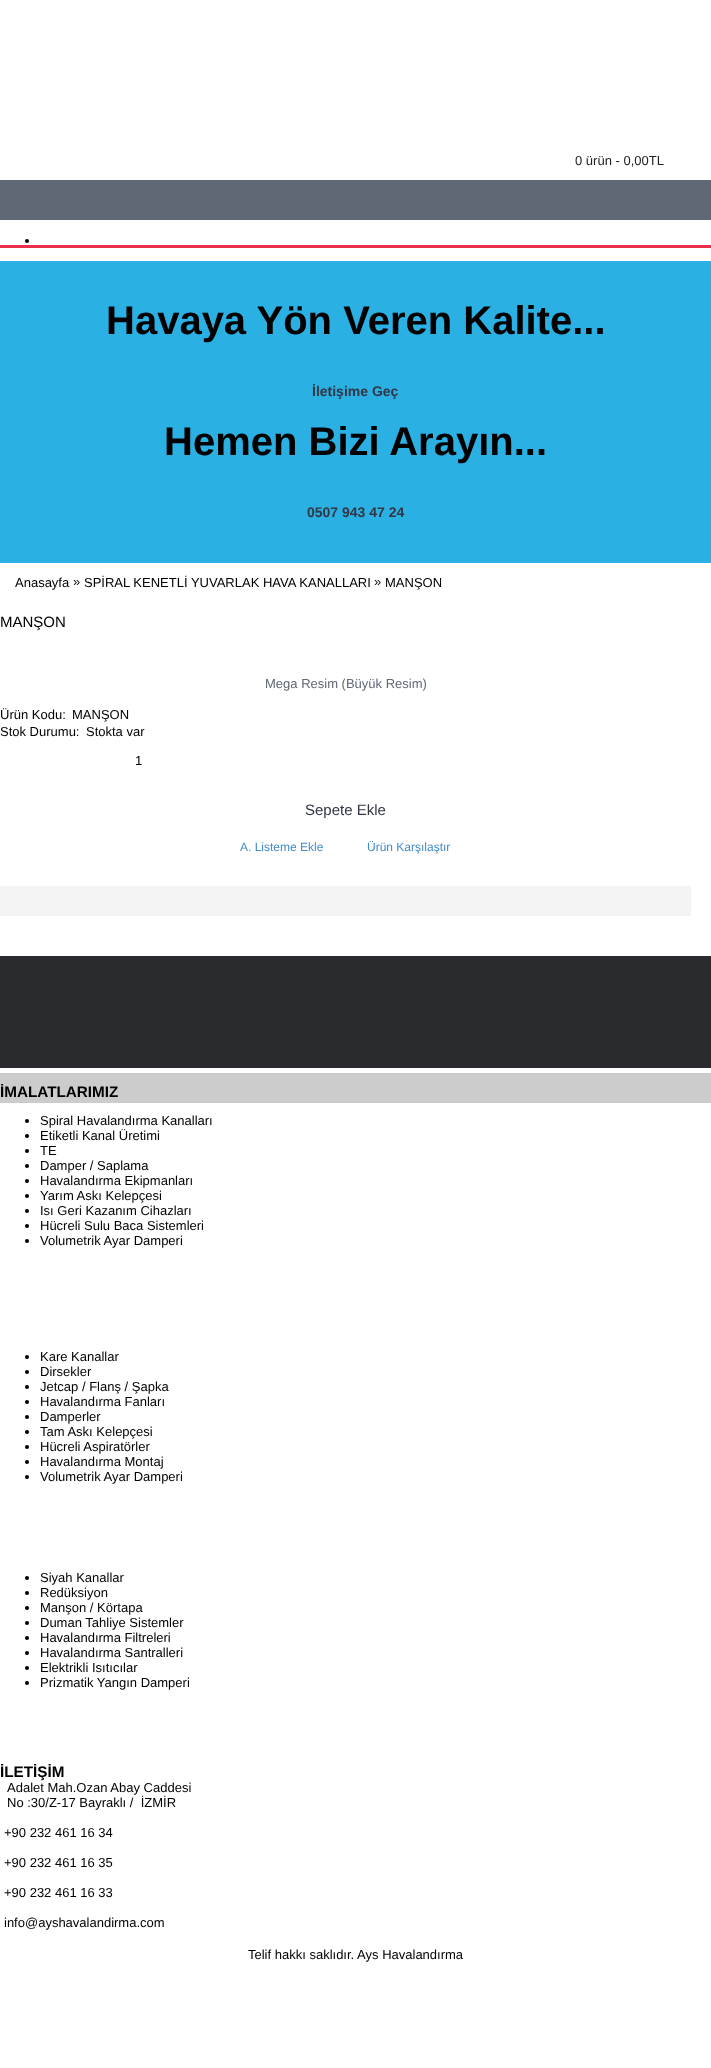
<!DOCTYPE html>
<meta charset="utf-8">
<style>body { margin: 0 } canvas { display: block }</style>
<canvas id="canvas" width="711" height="2068"></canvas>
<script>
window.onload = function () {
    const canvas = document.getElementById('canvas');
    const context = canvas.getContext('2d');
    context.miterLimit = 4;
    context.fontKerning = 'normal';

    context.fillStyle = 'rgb(255, 255, 255)';
    context.fillRect(0, 0, 711, 2068);
    context.fillStyle = 'rgb(95, 104, 116)';
    context.fillRect(0, 180, 711, 40);
    context.fillStyle = 'rgb(0, 0, 0)';
    context.beginPath();
    context.arc(27, 241, 2, 0, 2 * Math.PI);
    context.fill();
    context.fillStyle = 'rgb(234, 46, 73)';
    context.fillRect(0, 245, 711, 3);
    context.fillStyle = 'rgb(43, 176, 227)';
    context.fillRect(0, 261, 711, 302);
    context.fillStyle = 'rgb(244, 244, 244)';
    context.fillRect(0, 886, 691, 30);
    context.fillStyle = 'rgb(42, 43, 46)';
    context.fillRect(0, 956, 711, 112);
    context.fillStyle = 'rgb(204, 204, 204)';
    context.fillRect(0, 1073, 711, 30);
    context.fillStyle = 'rgb(0, 0, 0)';
    context.beginPath();
    context.arc(27, 1121, 2, 0, 2 * Math.PI);
    context.fill();
    context.beginPath();
    context.arc(27, 1136, 2, 0, 2 * Math.PI);
    context.fill();
    context.beginPath();
    context.arc(27, 1151, 2, 0, 2 * Math.PI);
    context.fill();
    context.beginPath();
    context.arc(27, 1166, 2, 0, 2 * Math.PI);
    context.fill();
    context.beginPath();
    context.arc(27, 1181, 2, 0, 2 * Math.PI);
    context.fill();
    context.beginPath();
    context.arc(27, 1196, 2, 0, 2 * Math.PI);
    context.fill();
    context.beginPath();
    context.arc(27, 1211, 2, 0, 2 * Math.PI);
    context.fill();
    context.beginPath();
    context.arc(27, 1226, 2, 0, 2 * Math.PI);
    context.fill();
    context.beginPath();
    context.arc(27, 1241, 2, 0, 2 * Math.PI);
    context.fill();
    context.beginPath();
    context.arc(27, 1357, 2, 0, 2 * Math.PI);
    context.fill();
    context.beginPath();
    context.arc(27, 1372, 2, 0, 2 * Math.PI);
    context.fill();
    context.beginPath();
    context.arc(27, 1387, 2, 0, 2 * Math.PI);
    context.fill();
    context.beginPath();
    context.arc(27, 1402, 2, 0, 2 * Math.PI);
    context.fill();
    context.beginPath();
    context.arc(27, 1417, 2, 0, 2 * Math.PI);
    context.fill();
    context.beginPath();
    context.arc(27, 1432, 2, 0, 2 * Math.PI);
    context.fill();
    context.beginPath();
    context.arc(27, 1447, 2, 0, 2 * Math.PI);
    context.fill();
    context.beginPath();
    context.arc(27, 1462, 2, 0, 2 * Math.PI);
    context.fill();
    context.beginPath();
    context.arc(27, 1477, 2, 0, 2 * Math.PI);
    context.fill();
    context.beginPath();
    context.arc(27, 1578, 2, 0, 2 * Math.PI);
    context.fill();
    context.beginPath();
    context.arc(27, 1593, 2, 0, 2 * Math.PI);
    context.fill();
    context.beginPath();
    context.arc(27, 1608, 2, 0, 2 * Math.PI);
    context.fill();
    context.beginPath();
    context.arc(27, 1623, 2, 0, 2 * Math.PI);
    context.fill();
    context.beginPath();
    context.arc(27, 1638, 2, 0, 2 * Math.PI);
    context.fill();
    context.beginPath();
    context.arc(27, 1653, 2, 0, 2 * Math.PI);
    context.fill();
    context.beginPath();
    context.arc(27, 1668, 2, 0, 2 * Math.PI);
    context.fill();
    context.beginPath();
    context.arc(27, 1683, 2, 0, 2 * Math.PI);
    context.fill();
    context.font = '13px Liberation Sans';
    context.fillStyle = 'rgb(34, 34, 34)';
    context.fillText('0 ürün - 0,00TL', 575, 165);
    context.font = 'bold 40px Liberation Sans';
    context.fillStyle = 'rgb(0, 0, 0)';
    context.fillText('Havaya Yön Veren Kalite...', 106, 334);
    context.font = 'bold 14px Liberation Sans';
    context.fillStyle = 'rgb(51, 55, 69)';
    context.fillText('İletişime Geç', 312, 396);
    context.font = 'bold 40px Liberation Sans';
    context.fillStyle = 'rgb(0, 0, 0)';
    context.fillText('Hemen Bizi Arayın...', 164, 455);
    context.font = 'bold 14px Liberation Sans';
    context.fillStyle = 'rgb(51, 55, 69)';
    context.fillText('0507 943 47 24', 307, 517);
    context.font = '13px Liberation Sans';
    context.fillStyle = 'rgb(0, 0, 0)';
    context.fillText('Anasayfa', 15, 587);
    context.fillText('»', 73, 586);
    context.fillText('SPİRAL KENETLİ YUVARLAK HAVA KANALLARI', 84, 587);
    context.fillText('»', 374, 586);
    context.fillText('MANŞON', 385, 587);
    context.font = '15px Liberation Sans';
    context.fillText('MANŞON', 0, 627);
    context.font = '13px Liberation Sans';
    context.fillStyle = 'rgb(95, 104, 116)';
    context.fillText('Mega Resim (Büyük Resim)', 265, 688);
    context.fillStyle = 'rgb(0, 0, 0)';
    context.fillText('Ürün Kodu:', 0, 719);
    context.fillText('MANŞON', 72, 719);
    context.fillText('Stok Durumu:', 0, 736);
    context.fillText('Stokta var', 86, 736);
    context.fillText('1', 135, 765);
    context.font = '15px Liberation Sans';
    context.fillStyle = 'rgb(51, 55, 69)';
    context.fillText('Sepete Ekle', 305, 815);
    context.font = '12px Liberation Sans';
    context.fillStyle = 'rgb(66, 139, 202)';
    context.fillText('A. Listeme Ekle', 240, 851);
    context.fillText('Ürün Karşılaştır', 367, 851);
    context.font = 'bold 15.25px Liberation Sans';
    context.fillStyle = 'rgb(0, 0, 0)';
    context.fillText('İMALATLARIMIZ', 0, 1097);
    context.font = '13px Liberation Sans';
    context.fillText('Spiral Havalandırma Kanalları', 40, 1125);
    context.fillText('Etiketli Kanal Üretimi', 40, 1140);
    context.fillText('TE', 40, 1155);
    context.fillText('Damper / Saplama', 40, 1170);
    context.fillText('Havalandırma Ekipmanları', 40, 1185);
    context.fillText('Yarım Askı Kelepçesi', 40, 1200);
    context.fillText('Isı Geri Kazanım Cihazları', 40, 1215);
    context.fillText('Hücreli Sulu Baca Sistemleri', 40, 1230);
    context.fillText('Volumetrik Ayar Damperi', 40, 1245);
    context.fillText('Kare Kanallar', 40, 1361);
    context.fillText('Dirsekler', 40, 1376);
    context.fillText('Jetcap / Flanş / Şapka', 40, 1391);
    context.fillText('Havalandırma Fanları', 40, 1406);
    context.fillText('Damperler', 40, 1421);
    context.fillText('Tam Askı Kelepçesi', 40, 1436);
    context.fillText('Hücreli Aspiratörler', 40, 1451);
    context.fillText('Havalandırma Montaj', 40, 1466);
    context.fillText('Volumetrik Ayar Damperi', 40, 1481);
    context.fillText('Siyah Kanallar', 40, 1582);
    context.fillText('Redüksiyon', 40, 1597);
    context.fillText('Manşon / Körtapa', 40, 1612);
    context.fillText('Duman Tahliye Sistemler', 40, 1627);
    context.fillText('Havalandırma Filtreleri', 40, 1642);
    context.fillText('Havalandırma Santralleri', 40, 1657);
    context.fillText('Elektrikli Isıtıcılar', 40, 1672);
    context.fillText('Prizmatik Yangın Damperi', 40, 1687);
    context.font = 'bold 15.25px Liberation Sans';
    context.fillText('İLETİŞİM', 0, 1777);
    context.font = '13px Liberation Sans';
    context.fillText('Adalet Mah.Ozan Abay Caddesi', 7, 1792);
    context.fillText('No :30/Z-17 Bayraklı /  İZMİR', 7, 1807);
    context.fillText('+90 232 461 16 34', 4, 1837);
    context.fillText('+90 232 461 16 35', 4, 1867);
    context.fillText('+90 232 461 16 33', 4, 1897);
    context.fillText('info@ayshavalandirma.com', 4, 1927);
    context.fillText('Telif hakkı saklıdır. Ays Havalandırma', 248, 1959);
};
</script>
